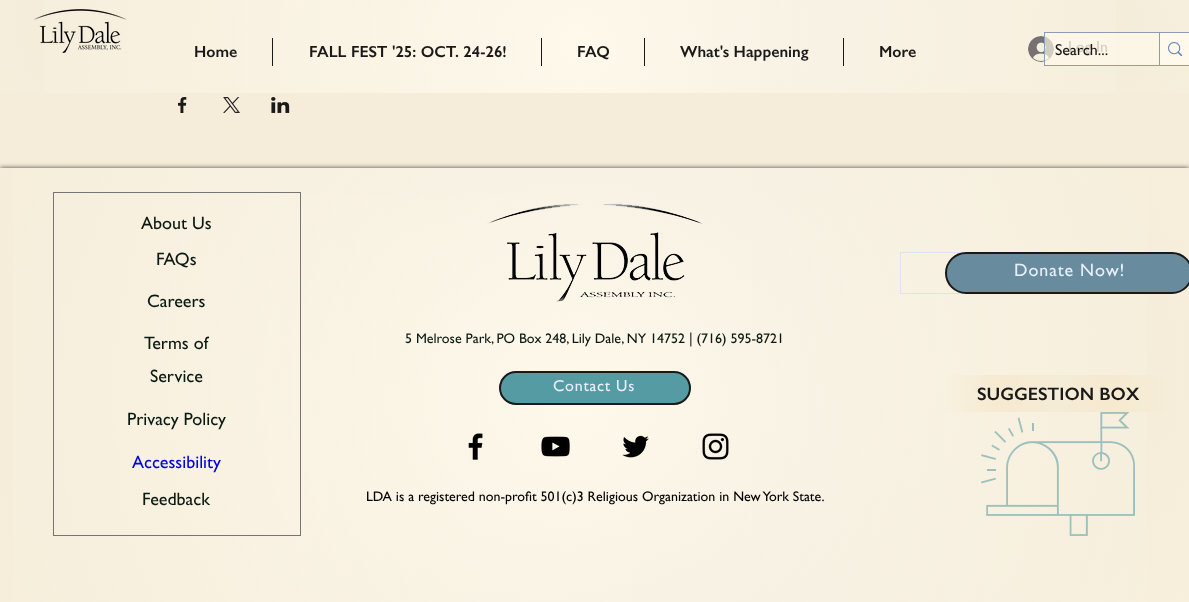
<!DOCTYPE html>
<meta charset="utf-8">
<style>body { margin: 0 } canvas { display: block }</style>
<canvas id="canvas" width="1189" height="602"></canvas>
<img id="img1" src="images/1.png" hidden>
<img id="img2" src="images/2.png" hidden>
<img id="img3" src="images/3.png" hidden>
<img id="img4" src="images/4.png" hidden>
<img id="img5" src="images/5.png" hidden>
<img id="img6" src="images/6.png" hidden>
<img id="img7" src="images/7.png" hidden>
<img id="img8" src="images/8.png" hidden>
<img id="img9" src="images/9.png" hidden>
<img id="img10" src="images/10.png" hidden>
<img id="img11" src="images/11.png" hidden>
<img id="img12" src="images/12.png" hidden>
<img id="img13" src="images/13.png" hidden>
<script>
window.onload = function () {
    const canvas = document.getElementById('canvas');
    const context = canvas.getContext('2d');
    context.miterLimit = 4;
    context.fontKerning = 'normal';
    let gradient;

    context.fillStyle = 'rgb(245, 237, 218)';
    context.fillRect(0, 0, 1189, 602);
    context.fillStyle = 'rgb(255, 248, 234)';
    context.fillRect(0, 0, 1189, 93);
    context.drawImage(document.getElementById('img1'), 0, 0, 1189, 68);
    gradient = context.createRadialGradient(581, 46, 0, 581, 46, 609);
    gradient.addColorStop(0, 'rgb(209, 208, 208)');
    gradient.addColorStop(1, 'rgba(209, 208, 208, 0)');
    context.fillStyle = gradient;
    context.fillRect(2, 0, 1158, 93);
    gradient = context.createRadialGradient(1090, 39, 0, 1090, 39, 1091);
    gradient.addColorStop(0, 'rgb(245, 237, 218)');
    gradient.addColorStop(0.7, 'rgba(245, 237, 218, 0)');
    context.fillStyle = gradient;
    context.fillRect(390, 0, 799, 93);
    gradient = context.createRadialGradient(73, 12, 0, 73, 12, 1119);
    gradient.addColorStop(0, 'rgb(245, 237, 218)');
    gradient.addColorStop(0.7, 'rgba(245, 237, 218, 0)');
    context.fillStyle = gradient;
    context.fillRect(0, 0, 728, 93);
    gradient = context.createRadialGradient(183, 73, 0, 183, 73, 1008);
    gradient.addColorStop(0, 'rgba(245, 237, 218, 0.99)');
    gradient.addColorStop(0.5, 'rgba(245, 237, 218, 0)');
    context.fillStyle = gradient;
    context.fillRect(151, 0, 464, 93);
    gradient = context.createRadialGradient(580, 47, 0, 580, 47, 611);
    gradient.addColorStop(0, 'rgb(255, 249, 235)');
    gradient.addColorStop(1, 'rgba(255, 249, 235, 0)');
    context.fillStyle = gradient;
    context.fillRect(44, 0, 1072, 93);
    context.drawImage(document.getElementById('img2'), 33, 9, 94, 44);
    context.fillStyle = 'rgb(26, 25, 25)';
    context.fillRect(272, 38, 1, 28);
    context.fillRect(541, 38, 1, 28);
    context.fillRect(644, 38, 1, 28);
    context.fillRect(843, 38, 1, 28);
    context.drawImage(document.getElementById('img3'), 1028, 36, 26, 26);
    context.strokeStyle = 'rgb(144, 156, 179)';
    context.strokeRect(1044.5, 32.5, 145, 33);
    context.fillStyle = 'rgb(255, 249, 235)';
    context.fillRect(1160, 33, 29, 32);
    context.fillStyle = 'rgb(144, 156, 179)';
    context.fillRect(1159, 33, 1, 32);
    context.drawImage(document.getElementById('img4'), 1168, 42, 15, 14);
    context.drawImage(document.getElementById('img5'), 178, 97, 9, 16);
    context.drawImage(document.getElementById('img6'), 223, 97, 17, 16);
    context.drawImage(document.getElementById('img7'), 271, 97, 19, 16);
    context.fillStyle = 'rgba(0, 0, 0, 0.7)';
    context.filter = 'blur(2.5px)';
    context.beginPath();
    context.rect(0, 168, 1189, 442);
    context.fill();
    context.filter = 'none';
    gradient = context.createRadialGradient(581, 395, 0, 581, 395, 650);
    gradient.addColorStop(0, 'rgb(209, 208, 208)');
    gradient.addColorStop(1, 'rgb(254, 246, 226)');
    context.fillStyle = gradient;
    context.fillRect(0, 168, 1189, 434);
    gradient = context.createRadialGradient(1090, 359, 0, 1090, 359, 1122);
    gradient.addColorStop(0, 'rgb(245, 237, 218)');
    gradient.addColorStop(0.7, 'rgba(245, 237, 218, 0)');
    context.fillStyle = gradient;
    context.fillRect(371, 168, 818, 434);
    gradient = context.createRadialGradient(73, 226, 0, 73, 226, 1186);
    gradient.addColorStop(0, 'rgb(245, 237, 218)');
    gradient.addColorStop(0.7, 'rgba(245, 237, 218, 0)');
    context.fillStyle = gradient;
    context.fillRect(0, 168, 752, 434);
    gradient = context.createRadialGradient(183, 528, 0, 183, 528, 1068);
    gradient.addColorStop(0, 'rgba(245, 237, 218, 0.99)');
    gradient.addColorStop(0.5, 'rgba(245, 237, 218, 0)');
    context.fillStyle = gradient;
    context.fillRect(0, 197, 634, 405);
    gradient = context.createRadialGradient(580, 398, 0, 580, 398, 651);
    gradient.addColorStop(0, 'rgb(255, 249, 235)');
    gradient.addColorStop(1, 'rgba(255, 249, 235, 0)');
    context.fillStyle = gradient;
    context.fillRect(13, 168, 1134, 434);
    context.strokeStyle = 'rgb(118, 116, 116)';
    context.strokeRect(53.5, 192.5, 247, 343);
    context.drawImage(document.getElementById('img8'), 487, 203, 216, 99);
    context.fillStyle = 'rgb(85, 155, 163)';
    context.beginPath();
    context.roundRect(500, 372, 190, 32, 16);
    context.fill();
    context.strokeStyle = 'rgb(26, 25, 25)';
    context.lineWidth = 2;
    context.stroke();
    context.drawImage(document.getElementById('img9'), 468, 433, 15, 27);
    context.drawImage(document.getElementById('img10'), 541, 436, 29, 21);
    context.drawImage(document.getElementById('img11'), 622, 435, 27, 23);
    context.drawImage(document.getElementById('img12'), 702, 433, 27, 27);
    context.strokeStyle = 'rgba(201, 218, 250, 0.6)';
    context.lineWidth = 1;
    context.strokeRect(900.5, 252.5, 247, 41);
    context.fillStyle = 'rgb(104, 140, 157)';
    context.beginPath();
    context.roundRect(946, 253, 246, 40, 20);
    context.fill();
    context.strokeStyle = 'rgb(26, 25, 25)';
    context.lineWidth = 2;
    context.stroke();
    gradient = context.createRadialGradient(1058, 394, 0, 1058, 394, 118);
    gradient.addColorStop(0, 'rgb(245, 237, 218)');
    gradient.addColorStop(0.54, 'rgba(244, 229, 195, 0.5)');
    gradient.addColorStop(1, 'rgba(244, 229, 195, 0)');
    context.fillStyle = gradient;
    context.fillRect(947, 375, 220, 37);
    context.drawImage(document.getElementById('img13'), 981, 412, 154, 124);
    context.font = '600 16px Gill Sans';
    context.fillStyle = 'rgb(26, 25, 25)';
    context.fillText('Home', 194, 57);
    context.fillText('FALL FEST \'25: OCT. 24-26!', 309, 57);
    context.fillText('FAQ', 577, 57);
    context.fillText('What\'s Happening', 680, 57);
    context.fillText('More', 879, 57);
    context.font = '16px Gill Sans';
    context.fillStyle = 'rgb(119, 113, 113)';
    context.fillText('Log In', 1068, 52);
    context.fillStyle = 'rgba(255, 249, 235, 0.67)';
    context.fillRect(1045, 33, 114, 32);
    context.fillStyle = 'rgb(26, 25, 25)';
    context.fillText('Search...', 1055, 55);
    context.font = '18px Gill Sans';
    context.fillStyle = 'rgb(10, 26, 19)';
    context.fillText('About Us', 141, 229);
    context.fillText('FAQs', 156, 265);
    context.fillText('Careers', 147, 307);
    context.fillText('Terms of', 144, 349);
    context.fillText('Service', 150, 382);
    context.fillText('Privacy Policy', 127, 425);
    context.fillStyle = 'rgb(0, 0, 224)';
    context.fillText('Accessibility', 132, 468);
    context.fillStyle = 'rgb(10, 26, 19)';
    context.fillText('Feedback', 142, 505);
    context.font = '14px Gill Sans';
    context.fillText('5 Melrose Park, PO Box 248, Lily Dale, NY 14752 | (716) 595-8721', 405, 343);
    context.letterSpacing = '0.75px';
    context.font = '16px Gill Sans';
    context.fillStyle = 'rgb(232, 238, 252)';
    context.fillText('Contact Us', 553, 391);
    context.letterSpacing = '0px';
    context.font = '14px Gill Sans';
    context.fillStyle = 'rgb(0, 0, 0)';
    context.fillText('LDA is a registered non-profit 501(c)3 Religious Organization in New York State.', 366, 501);
    context.letterSpacing = '0.9px';
    context.font = '18px Gill Sans';
    context.fillStyle = 'rgb(232, 238, 252)';
    context.fillText('Donate Now!', 1014, 276);
    context.letterSpacing = '0px';
    context.font = '600 18px Gill Sans';
    context.fillStyle = 'rgb(26, 25, 25)';
    context.fillText('SUGGESTION BOX', 977, 400);
};
</script>
